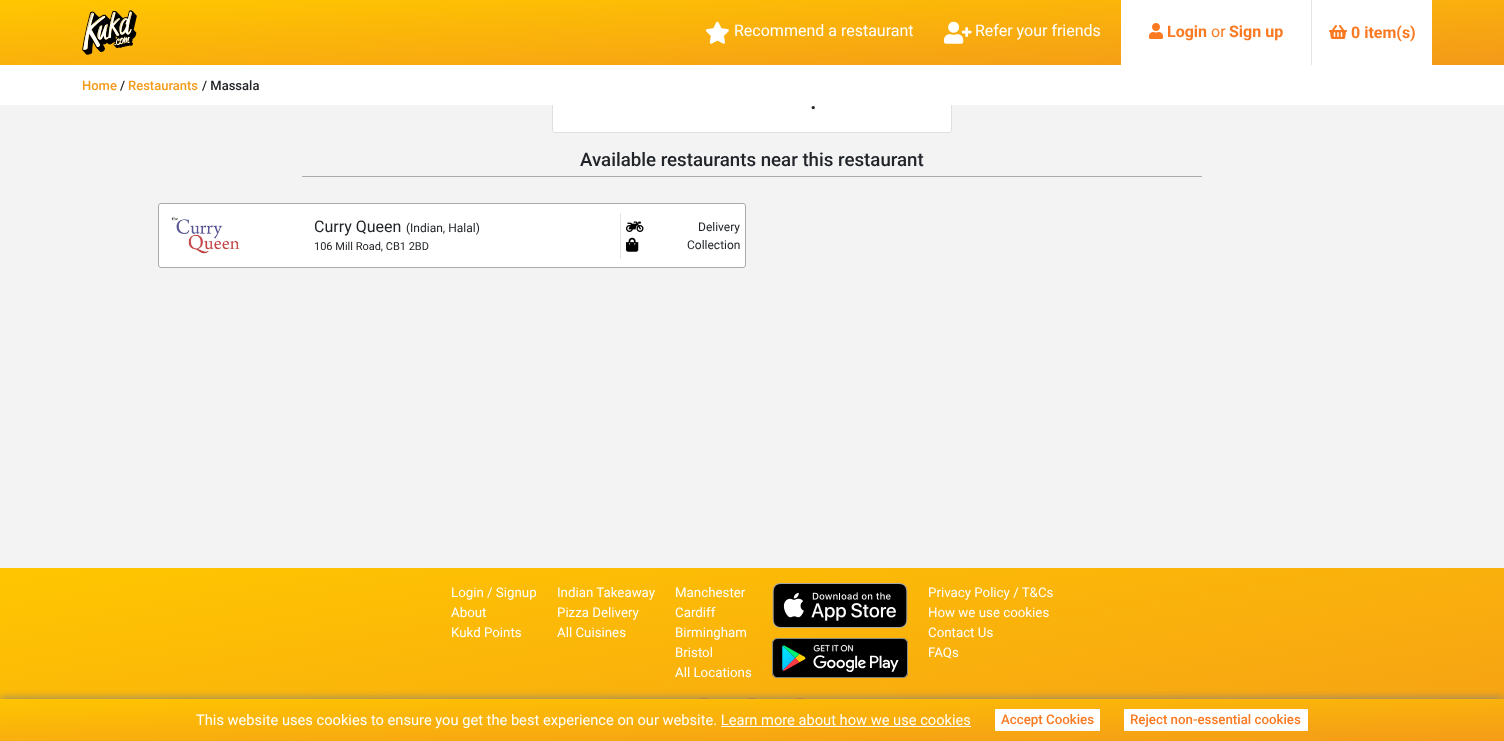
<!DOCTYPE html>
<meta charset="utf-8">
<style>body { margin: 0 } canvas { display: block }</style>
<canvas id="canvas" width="1504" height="741"></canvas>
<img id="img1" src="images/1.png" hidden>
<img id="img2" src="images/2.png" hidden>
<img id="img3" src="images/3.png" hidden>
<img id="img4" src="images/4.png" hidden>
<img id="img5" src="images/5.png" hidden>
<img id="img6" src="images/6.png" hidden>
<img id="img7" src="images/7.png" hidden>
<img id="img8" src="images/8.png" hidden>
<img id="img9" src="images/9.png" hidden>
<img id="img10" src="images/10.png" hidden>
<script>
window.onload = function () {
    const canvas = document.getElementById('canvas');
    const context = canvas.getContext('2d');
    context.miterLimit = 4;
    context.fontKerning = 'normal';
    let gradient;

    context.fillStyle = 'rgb(243, 243, 243)';
    context.fillRect(0, 0, 1504, 741);
    context.fillStyle = 'rgb(255, 255, 255)';
    context.beginPath();
    context.roundRect(552, 41, 400, 92, 2.5);
    context.fill();
    context.beginPath();
    context.roundRect(552.5, 41.5, 399, 91, 2);
    context.strokeStyle = 'rgba(0, 0, 0, 0.12)';
    context.stroke();
    gradient = context.createLinearGradient(749, -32, 755, 97);
    gradient.addColorStop(0, 'rgb(255, 198, 0)');
    gradient.addColorStop(1, 'rgb(244, 154, 25)');
    context.fillStyle = gradient;
    context.fillRect(0, 0, 1504, 65);
    context.drawImage(document.getElementById('img1'), 82, 10, 55, 45);
    context.drawImage(document.getElementById('img2'), 705, 21, 24, 23);
    context.drawImage(document.getElementById('img3'), 944, 21, 28, 23);
    context.fillStyle = 'rgb(255, 255, 255)';
    context.fillRect(1121, 0, 190, 65);
    context.drawImage(document.getElementById('img4'), 1149, 23, 14, 16);
    context.fillRect(1312, 0, 120, 65);
    context.fillStyle = 'rgb(228, 228, 228)';
    context.fillRect(1311, 0, 1, 65);
    context.drawImage(document.getElementById('img5'), 1329, 25, 18, 14);
    context.fillStyle = 'rgb(255, 255, 255)';
    context.fillRect(0, 65, 1504, 40);
    context.fillStyle = 'rgb(170, 170, 170)';
    context.fillRect(302, 176, 900, 1);
    context.fillStyle = 'rgb(255, 255, 255)';
    context.beginPath();
    context.roundRect(158.5, 203.5, 587, 64, 2.5);
    context.fill();
    context.strokeStyle = 'rgb(170, 170, 170)';
    context.stroke();
    context.drawImage(document.getElementById('img6'), 171, 216, 69, 38);
    context.fillStyle = 'rgb(228, 228, 228)';
    context.fillRect(620, 213, 1, 46);
    context.drawImage(document.getElementById('img7'), 626, 221, 18, 11);
    context.drawImage(document.getElementById('img8'), 626, 237, 13, 15);
    gradient = context.createLinearGradient(713, 452, 791, 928);
    gradient.addColorStop(0, 'rgb(255, 198, 0)');
    gradient.addColorStop(1, 'rgb(244, 154, 25)');
    context.fillStyle = gradient;
    context.fillRect(0, 568, 1504, 131);
    context.drawImage(document.getElementById('img9'), 772, 583, 136, 45);
    context.drawImage(document.getElementById('img10'), 772, 638, 136, 40);
    context.fillStyle = 'rgb(250, 121, 33)';
    context.beginPath();
    context.arc(704, 718, 20, 0, 2 * Math.PI);
    context.fill();
    context.beginPath();
    context.arc(752, 718, 20, 0, 2 * Math.PI);
    context.fill();
    context.beginPath();
    context.arc(800, 718, 20, 0, 2 * Math.PI);
    context.fill();
    context.fillStyle = 'rgb(128, 128, 128)';
    context.filter = 'blur(5px)';
    context.beginPath();
    context.rect(0, 699, 1504, 42);
    context.fill();
    context.filter = 'none';
    gradient = context.createLinearGradient(751, 678, 753, 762);
    gradient.addColorStop(0, 'rgb(255, 198, 0)');
    gradient.addColorStop(1, 'rgb(244, 154, 25)');
    context.fillStyle = gradient;
    context.fillRect(0, 699, 1504, 42);
    context.fillStyle = 'rgb(255, 255, 255)';
    context.fillRect(721, 726, 250, 1);
    context.beginPath();
    context.roundRect(995, 709, 105, 22, 1);
    context.fill();
    context.beginPath();
    context.roundRect(1124, 709, 184, 22, 1);
    context.fill();
    context.font = '16px Roboto';
    context.fillText('Recommend a restaurant', 734, 36);
    context.fillText('Refer your friends', 975, 36);
    context.font = 'bold 16px Roboto';
    context.fillStyle = 'rgb(250, 121, 33)';
    context.fillText('Login', 1167, 37);
    context.font = '16px Roboto';
    context.fillText('or', 1211, 37);
    context.font = 'bold 16px Roboto';
    context.fillText('Sign up', 1229, 37);
    context.fillText('0 item(s)', 1351, 38);
    context.font = '500 13px Roboto';
    context.fillStyle = 'rgb(244, 154, 25)';
    context.fillText('Home', 82, 90);
    context.fillStyle = 'rgb(33, 37, 41)';
    context.fillText('/', 120, 90);
    context.fillStyle = 'rgb(244, 154, 25)';
    context.fillText('Restaurants', 128, 90);
    context.fillStyle = 'rgb(33, 37, 41)';
    context.fillText('/ Massala', 202, 90);
    context.font = '500 24px Roboto';
    context.fillText('.', 810, 109);
    context.font = '500 18.7px Roboto';
    context.fillText('Available restaurants near this restaurant', 580, 166);
    context.font = '16px Roboto';
    context.fillText('Curry Queen', 314, 232);
    context.font = '12px Roboto';
    context.fillText('(Indian, Halal)', 406, 232);
    context.font = '11px Roboto';
    context.fillText('106 Mill Road, CB1 2BD', 314, 250);
    context.font = '12px Roboto';
    context.fillText('Delivery', 698, 231);
    context.fillText('Collection', 687, 249);
    context.font = '13.3px Roboto';
    context.fillStyle = 'rgb(255, 255, 255)';
    context.fillText('Login / Signup', 451, 597);
    context.fillText('About', 451, 617);
    context.fillText('Kukd Points', 451, 637);
    context.fillText('Indian Takeaway', 557, 597);
    context.fillText('Pizza Delivery', 557, 617);
    context.fillText('All Cuisines', 557, 637);
    context.fillText('Manchester', 675, 597);
    context.fillText('Cardiff', 675, 617);
    context.fillText('Birmingham', 675, 637);
    context.fillText('Bristol', 675, 657);
    context.fillText('All Locations', 675, 677);
    context.fillText('Privacy Policy / T&Cs', 928, 597);
    context.fillText('How we use cookies', 928, 617);
    context.fillText('Contact Us', 928, 637);
    context.fillText('FAQs', 928, 657);
    context.font = '14.67px Roboto';
    context.fillText('This website uses cookies to ensure you get the best experience on our website. Learn more about how we use cookies', 196, 725);
    context.font = '500 13.3px Roboto';
    context.fillStyle = 'rgb(250, 121, 33)';
    context.fillText('Accept Cookies', 1001, 724);
    context.fillText('Reject non-essential cookies', 1130, 724);
};
</script>
